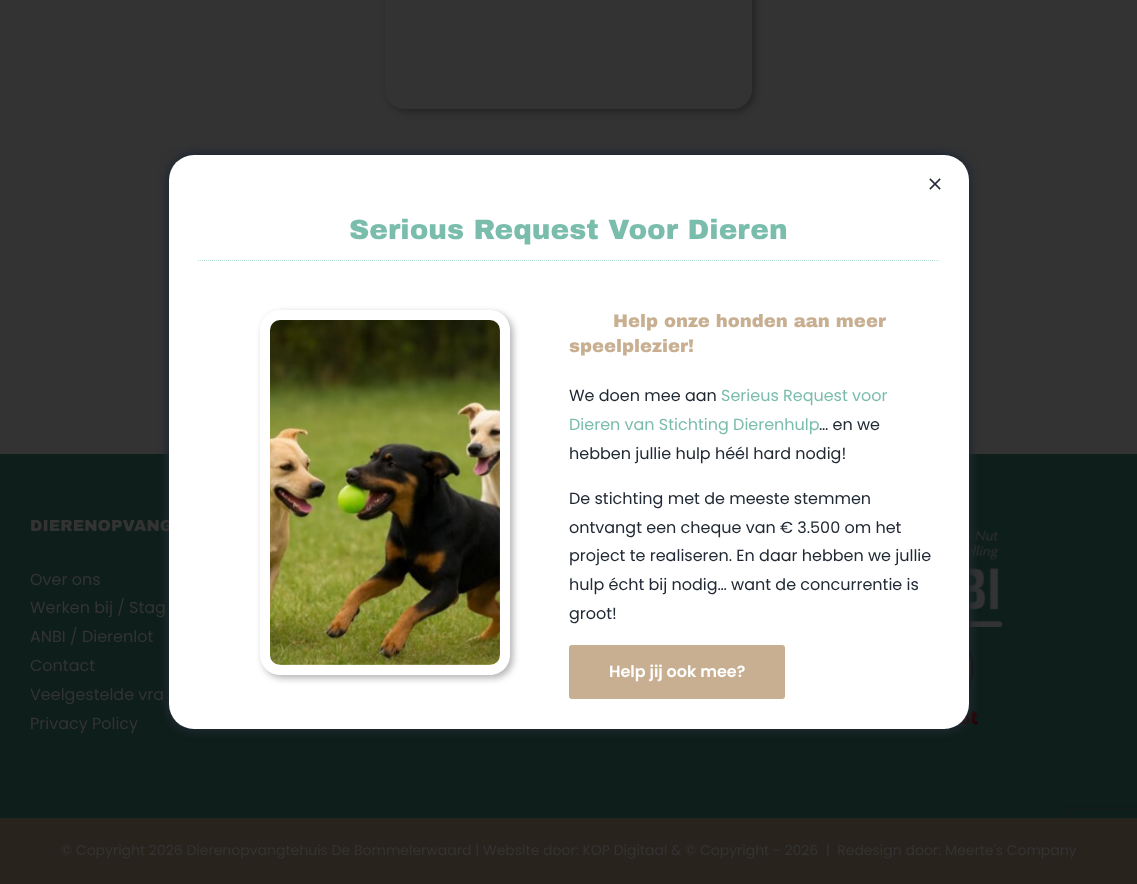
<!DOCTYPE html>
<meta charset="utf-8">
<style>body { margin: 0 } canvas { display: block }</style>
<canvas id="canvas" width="1137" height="884"></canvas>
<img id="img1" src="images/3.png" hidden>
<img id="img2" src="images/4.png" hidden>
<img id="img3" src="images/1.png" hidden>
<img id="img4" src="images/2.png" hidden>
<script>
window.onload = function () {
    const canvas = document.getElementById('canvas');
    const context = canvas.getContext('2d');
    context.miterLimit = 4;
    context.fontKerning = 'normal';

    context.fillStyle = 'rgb(51, 51, 51)';
    context.fillRect(0, 0, 1137, 884);
    context.fillStyle = 'rgb(14, 30, 26)';
    context.fillRect(0, 454, 1137, 364);
    context.drawImage(document.getElementById('img1'), 969, 530, 33, 97);
    context.drawImage(document.getElementById('img2'), 957, 648, 21, 77);
    context.fillStyle = 'rgb(33, 41, 52)';
    context.filter = 'blur(4.5px)';
    context.beginPath();
    context.roundRect(166, 152, 806, 580, 28);
    context.fill();
    context.filter = 'none';
    context.save();
    context.beginPath();
    context.moveTo(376, 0);
    context.lineTo(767, 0);
    context.lineTo(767, 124);
    context.lineTo(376, 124);
    context.closePath();
    context.moveTo(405, -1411);
    context.lineTo(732, -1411);
    context.bezierCurveTo(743, -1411, 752, -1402, 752, -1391);
    context.lineTo(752, 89);
    context.bezierCurveTo(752, 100, 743, 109, 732, 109);
    context.lineTo(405, 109);
    context.bezierCurveTo(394, 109, 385, 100, 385, 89);
    context.lineTo(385, -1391);
    context.bezierCurveTo(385, -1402, 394, -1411, 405, -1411);
    context.closePath();
    context.clip('evenodd');
    context.fillStyle = 'rgba(0, 0, 0, 0.3)';
    context.filter = 'blur(3.5px)';
    context.beginPath();
    context.roundRect(388, -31, 367, 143, 20);
    context.fill();
    context.filter = 'none';
    context.restore();
    context.beginPath();
    context.roundRect(390, -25, 357, 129, 15);
    context.strokeStyle = 'rgb(51, 51, 51)';
    context.lineWidth = 10;
    context.stroke();
    context.save();
    context.beginPath();
    context.moveTo(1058, 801);
    context.lineTo(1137, 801);
    context.lineTo(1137, 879);
    context.lineTo(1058, 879);
    context.closePath();
    context.moveTo(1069, 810);
    context.lineTo(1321, 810);
    context.bezierCurveTo(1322, 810, 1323, 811, 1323, 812);
    context.lineTo(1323, 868);
    context.bezierCurveTo(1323, 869, 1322, 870, 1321, 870);
    context.lineTo(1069, 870);
    context.bezierCurveTo(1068, 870, 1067, 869, 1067, 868);
    context.lineTo(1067, 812);
    context.bezierCurveTo(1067, 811, 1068, 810, 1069, 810);
    context.closePath();
    context.clip('evenodd');
    context.fillStyle = 'rgb(26, 26, 26)';
    context.filter = 'blur(2.5px)';
    context.beginPath();
    context.roundRect(1067, 810, 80, 60, 2);
    context.fill();
    context.filter = 'none';
    context.restore();
    context.fillStyle = 'rgb(40, 35, 29)';
    context.fillRect(0, 818, 1137, 66);
    context.font = '900 16px Archivo Black';
    context.fillStyle = 'rgb(51, 51, 51)';
    context.fillText('DIERENOPVANG', 30, 531);
    context.fillStyle = 'rgb(255, 255, 255)';
    context.beginPath();
    context.roundRect(169, 155, 800, 574, 25);
    context.fill();
    context.drawImage(document.getElementById('img3'), 929, 178, 12, 12);
    context.fillStyle = 'rgba(0, 0, 0, 0.3)';
    context.filter = 'blur(3.5px)';
    context.beginPath();
    context.roundRect(263, 313, 250, 365, 20);
    context.fill();
    context.filter = 'none';
    context.fillStyle = 'rgb(255, 255, 255)';
    context.beginPath();
    context.moveTo(280, 310);
    context.lineTo(490, 310);
    context.bezierCurveTo(501, 310, 510, 319, 510, 330);
    context.lineTo(510, 655);
    context.bezierCurveTo(510, 666, 501, 675, 490, 675);
    context.lineTo(280, 675);
    context.bezierCurveTo(269, 675, 260, 666, 260, 655);
    context.lineTo(260, 330);
    context.bezierCurveTo(260, 319, 269, 310, 280, 310);
    context.closePath();
    context.fill();
    context.drawImage(document.getElementById('img4'), 270, 320, 230, 345);
    context.fillStyle = 'rgb(200, 175, 145)';
    context.beginPath();
    context.roundRect(569, 645, 216, 54, 3);
    context.fill();
    context.font = '600 16px Poppins';
    context.fillStyle = 'rgb(255, 255, 255)';
    context.fillText('Help jij ook mee?', 609, 677);
    context.font = '16px Poppins';
    context.fillStyle = 'rgb(33, 41, 52)';
    context.fillText('groot!', 569, 619);
    context.fillText('hulp écht bij nodig… want de concurrentie is', 569, 590);
    context.fillText('project te realiseren. En daar hebben we jullie', 569, 561);
    context.fillText('ontvangt een cheque van € 3.500 om het', 569, 533);
    context.fillText('De stichting met de meeste stemmen', 569, 504);
    context.fillText('hebben jullie hulp héél hard nodig!', 569, 459);
    context.fillText('… en we', 819, 430);
    context.fillStyle = 'rgb(122, 189, 173)';
    context.fillText('Dieren van Stichting Dierenhulp', 569, 430);
    context.fillText('Serieus Request voor', 721, 401);
    context.fillStyle = 'rgb(33, 41, 52)';
    context.fillText('We doen mee aan', 569, 401);
    context.font = '900 18px Archivo Black';
    context.fillStyle = 'rgb(200, 175, 145)';
    context.fillText('speelplezier!', 569, 352);
    context.fillText('Help onze honden aan meer', 613, 327);
    context.font = '900 28px Archivo Black';
    context.fillStyle = 'rgb(122, 189, 173)';
    context.fillText('Serious Request Voor Dieren', 349, 239);
    context.beginPath();
    context.moveTo(198, 260.5);
    context.lineTo(939, 260.5);
    context.strokeStyle = 'rgb(183, 224, 214)';
    context.lineWidth = 1;
    context.setLineDash([1, 1]);
    context.stroke();
    context.font = '16px Poppins';
    context.fillStyle = 'rgb(51, 51, 51)';
    context.fillText('Over ons', 30, 585);
    context.fillText('Werken bij / Stag', 30, 613);
    context.fillText('ANBI / Dierenlot', 30, 642);
    context.fillText('Contact', 30, 671);
    context.fillText('Veelgestelde vra', 30, 700);
    context.fillText('Privacy Policy', 30, 729);
    context.font = '14px Poppins';
    context.fillText('© Copyright 2026 Dierenopvangtehuis De Bommelerwaard |', 61, 855);
    context.fillText('Website door: KOP Digitaal', 483, 855);
    context.fillText('& © Copyright - 2026  |  Redesign door:', 671, 855);
    context.fillText('Meerte\'s Company', 945, 855);
};
</script>
